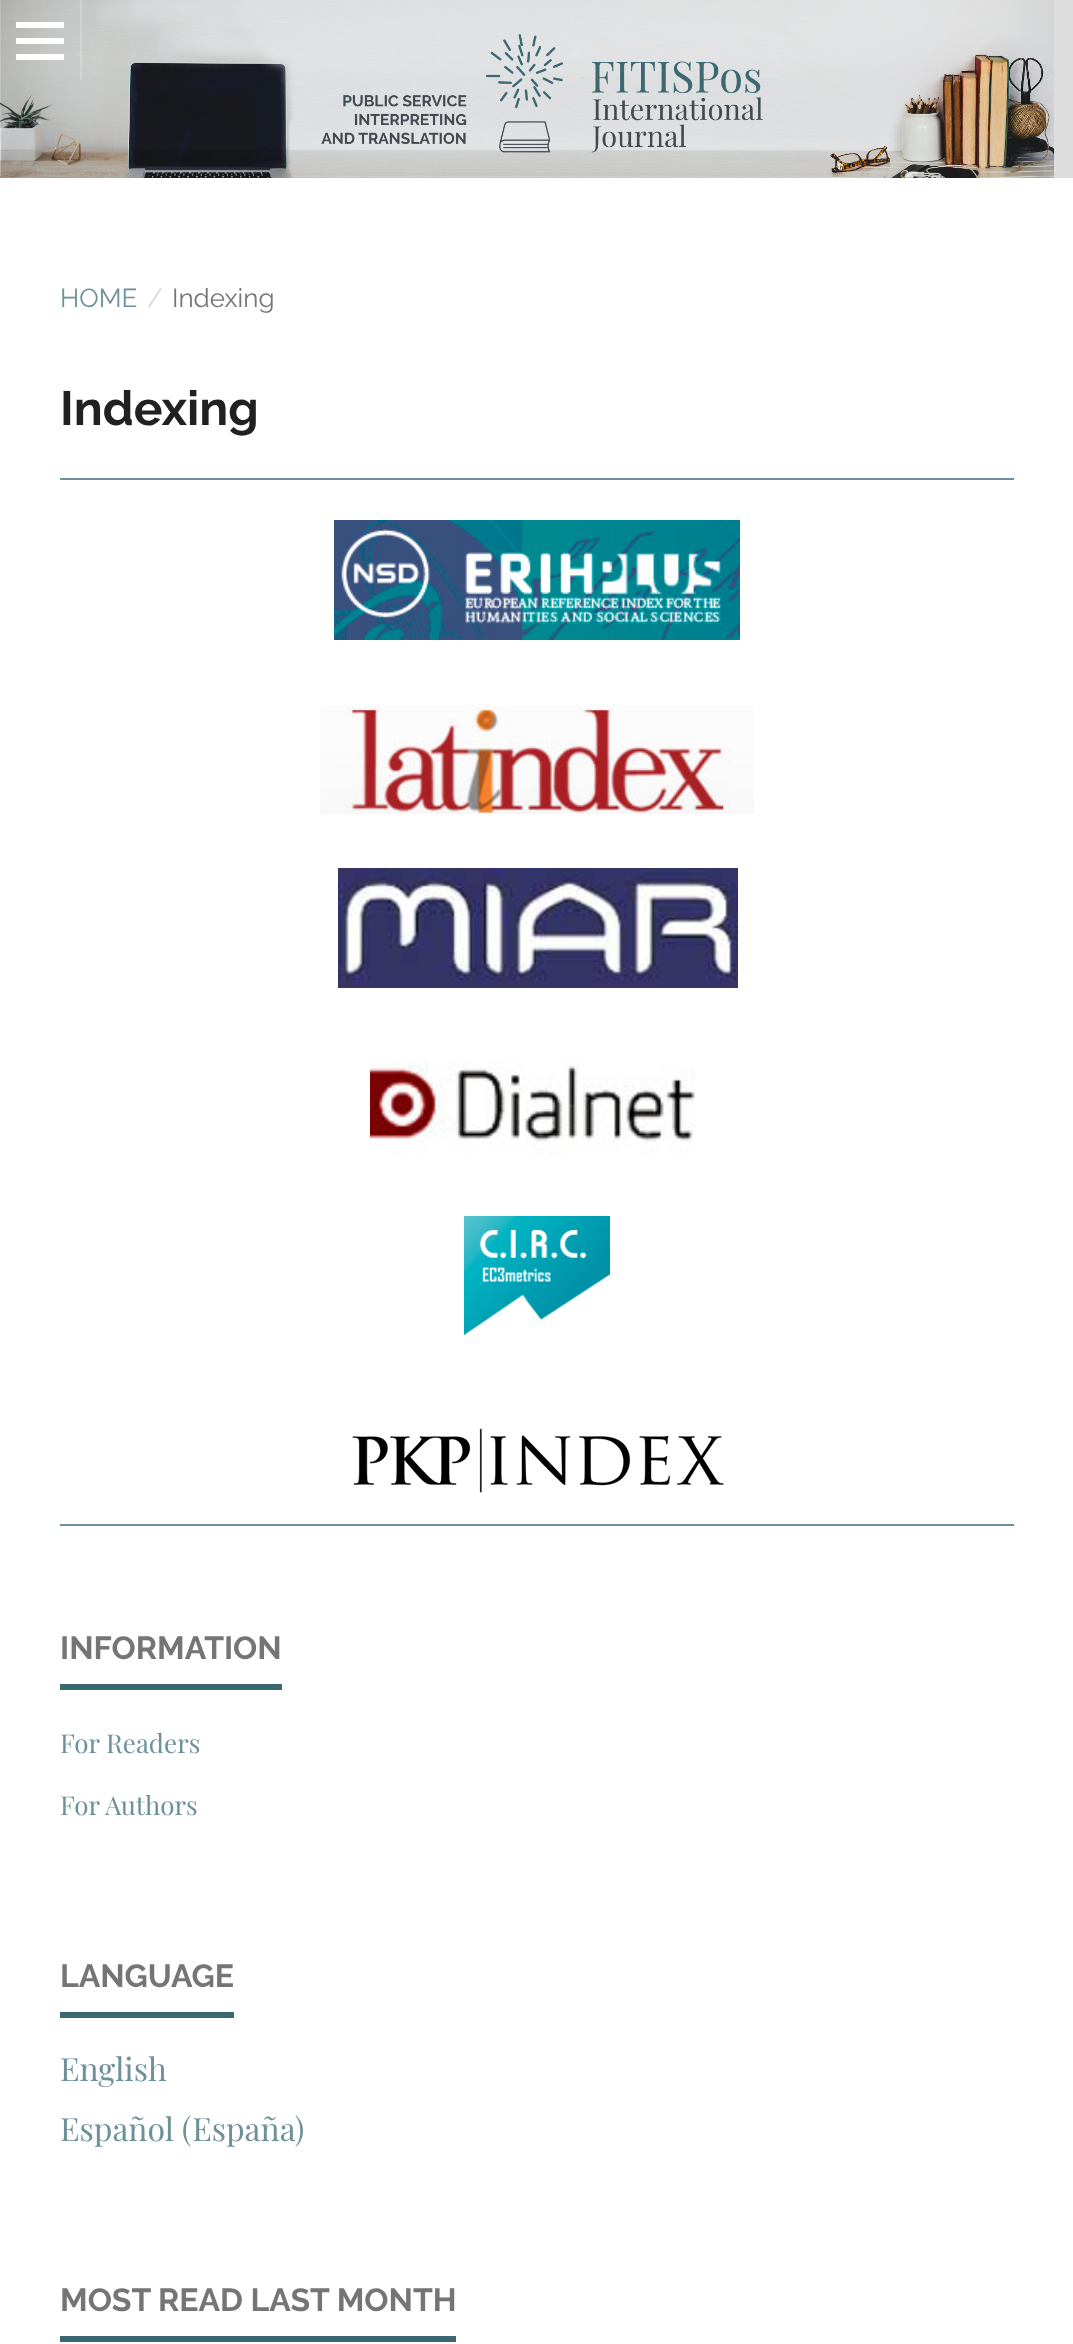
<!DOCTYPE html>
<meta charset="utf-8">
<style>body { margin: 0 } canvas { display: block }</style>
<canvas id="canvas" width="1073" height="2344"></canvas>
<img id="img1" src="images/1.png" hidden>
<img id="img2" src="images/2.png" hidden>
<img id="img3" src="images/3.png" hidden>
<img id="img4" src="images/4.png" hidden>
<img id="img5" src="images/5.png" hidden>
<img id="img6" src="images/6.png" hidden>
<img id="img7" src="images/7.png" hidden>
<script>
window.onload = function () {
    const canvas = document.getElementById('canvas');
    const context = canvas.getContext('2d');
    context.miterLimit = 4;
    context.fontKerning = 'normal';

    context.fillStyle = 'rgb(221, 221, 221)';
    context.fillRect(0, 0, 1073, 2344);
    context.drawImage(document.getElementById('img1'), 0, 0, 1054, 178);
    context.fillStyle = 'rgba(255, 255, 255, 0.2)';
    context.fillRect(80, 0, 2, 80);
    context.fillStyle = 'rgb(255, 255, 255)';
    context.fillRect(16, 54, 48, 6);
    context.fillRect(16, 22, 48, 6);
    context.fillRect(16, 38, 48, 6);
    context.fillRect(0, 178, 1073, 2166);
    context.fillStyle = 'rgb(109, 145, 154)';
    context.fillRect(60, 478, 954, 2);
    context.fillRect(60, 1524, 954, 2);
    context.drawImage(document.getElementById('img2'), 334, 520, 406, 120);
    context.drawImage(document.getElementById('img3'), 320, 705, 434, 109);
    context.drawImage(document.getElementById('img4'), 338, 868, 400, 120);
    context.drawImage(document.getElementById('img5'), 370, 1061, 326, 94);
    context.drawImage(document.getElementById('img6'), 464, 1216, 146, 120);
    context.drawImage(document.getElementById('img7'), 352, 1428, 372, 65);
    context.fillStyle = 'rgb(60, 104, 114)';
    context.fillRect(60, 1684, 222, 6);
    context.fillRect(60, 2012, 174, 6);
    context.fillRect(60, 2336, 396, 6);
    context.font = '26px Raleway';
    context.fillStyle = 'rgb(109, 145, 154)';
    context.fillText('HOME', 60, 307);
    context.fillStyle = 'rgb(214, 214, 214)';
    context.fillText('/', 147, 307);
    context.fillStyle = 'rgb(117, 117, 117)';
    context.fillText('Indexing', 172, 307);
    context.font = 'bold 48px Raleway';
    context.fillStyle = 'rgb(33, 33, 33)';
    context.fillText('Indexing', 60, 425);
    context.font = 'bold 32px Raleway';
    context.fillStyle = 'rgb(117, 117, 117)';
    context.fillText('INFORMATION', 60, 1659);
    context.font = '26px Playfair Display';
    context.fillStyle = 'rgb(109, 145, 154)';
    context.fillText('For Readers', 60, 1753);
    context.fillText('For Authors', 60, 1815);
    context.font = 'bold 32px Raleway';
    context.fillStyle = 'rgb(117, 117, 117)';
    context.fillText('LANGUAGE', 60, 1987);
    context.font = '32px Playfair Display';
    context.fillStyle = 'rgb(109, 145, 154)';
    context.fillText('English', 60, 2081);
    context.fillText('Español (España)', 60, 2141);
    context.font = 'bold 32px Raleway';
    context.fillStyle = 'rgb(117, 117, 117)';
    context.fillText('MOST READ LAST MONTH', 60, 2311);
};
</script>
